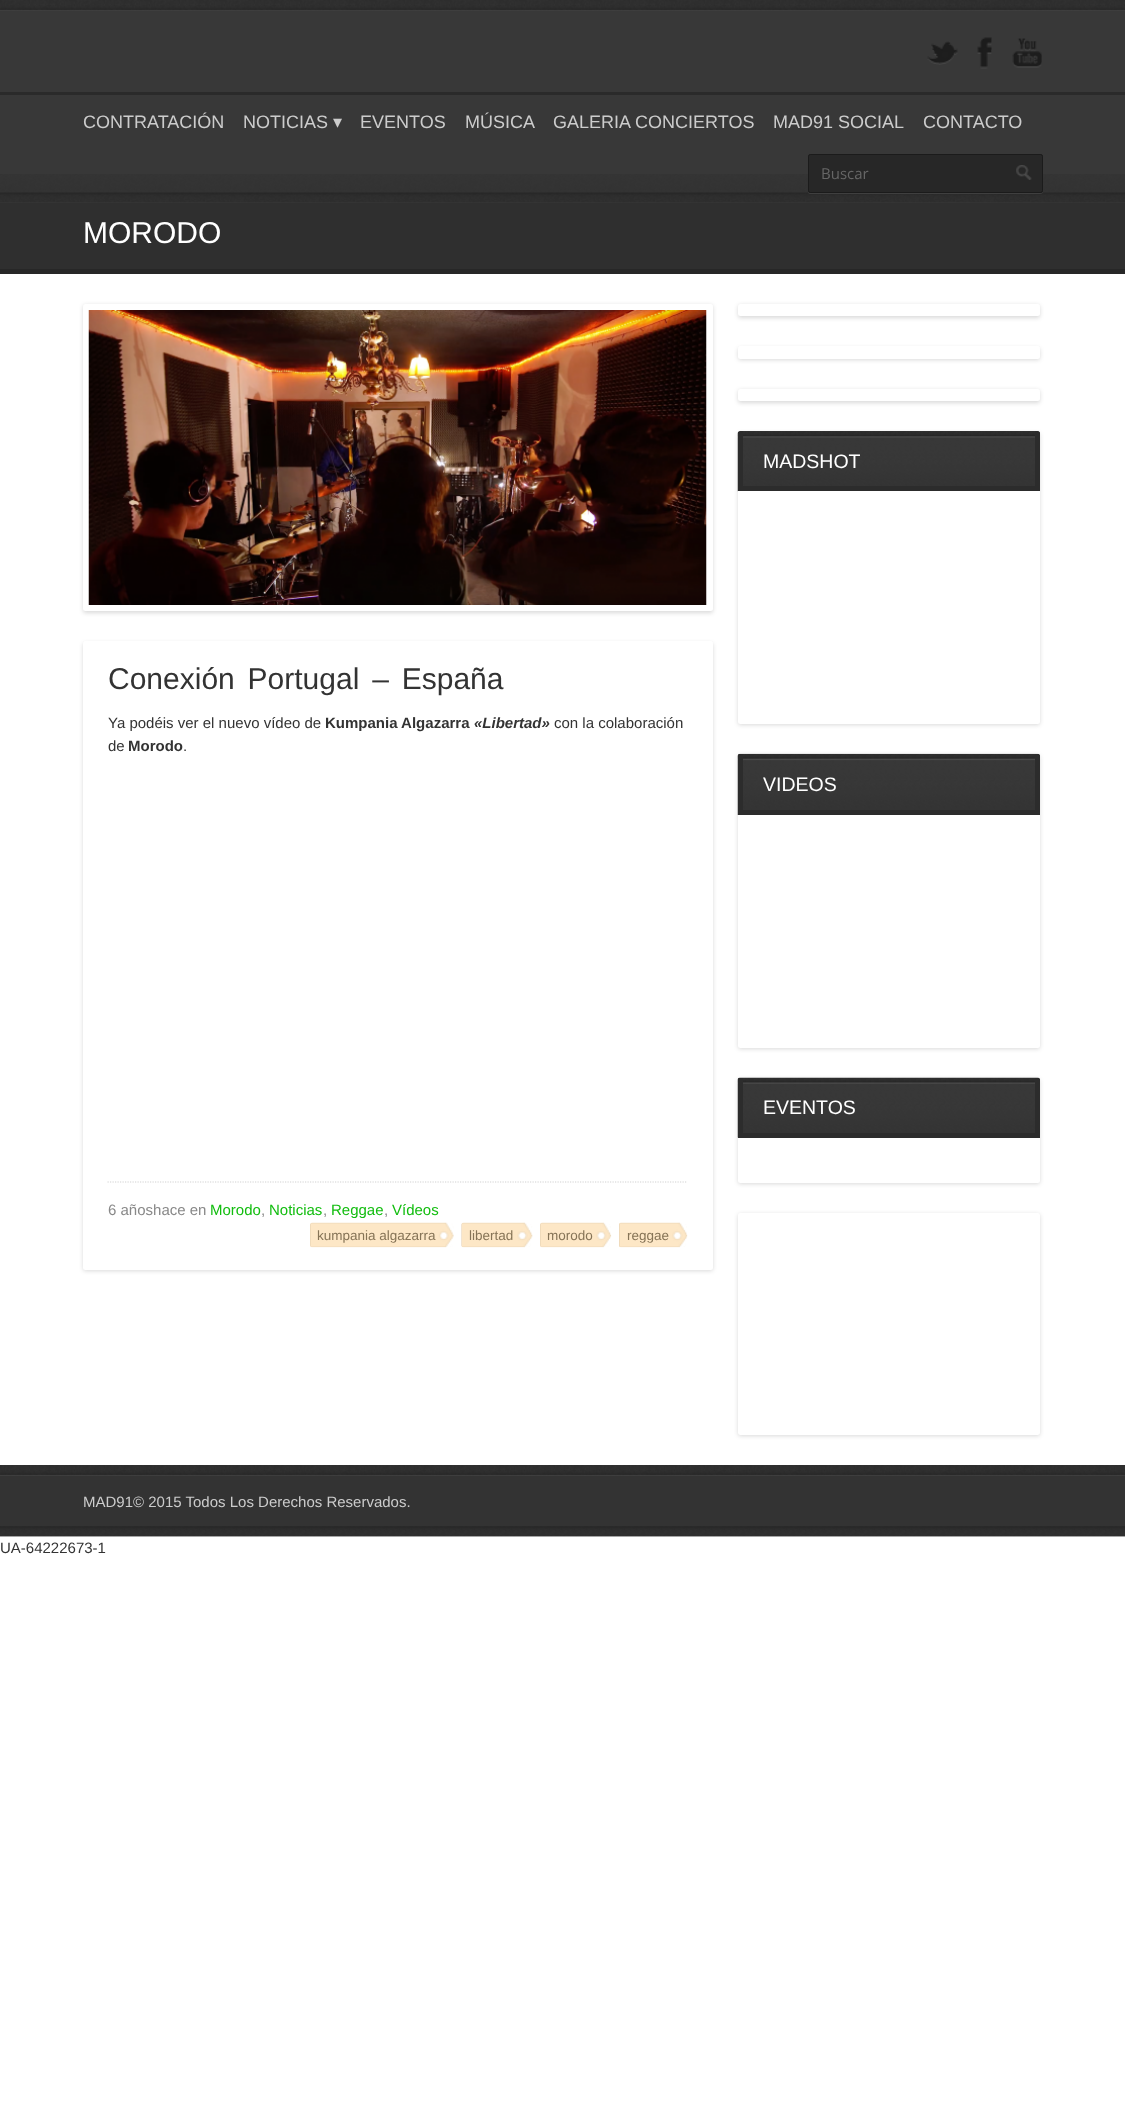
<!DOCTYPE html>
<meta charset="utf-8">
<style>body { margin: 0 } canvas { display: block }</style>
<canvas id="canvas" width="1125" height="2120"></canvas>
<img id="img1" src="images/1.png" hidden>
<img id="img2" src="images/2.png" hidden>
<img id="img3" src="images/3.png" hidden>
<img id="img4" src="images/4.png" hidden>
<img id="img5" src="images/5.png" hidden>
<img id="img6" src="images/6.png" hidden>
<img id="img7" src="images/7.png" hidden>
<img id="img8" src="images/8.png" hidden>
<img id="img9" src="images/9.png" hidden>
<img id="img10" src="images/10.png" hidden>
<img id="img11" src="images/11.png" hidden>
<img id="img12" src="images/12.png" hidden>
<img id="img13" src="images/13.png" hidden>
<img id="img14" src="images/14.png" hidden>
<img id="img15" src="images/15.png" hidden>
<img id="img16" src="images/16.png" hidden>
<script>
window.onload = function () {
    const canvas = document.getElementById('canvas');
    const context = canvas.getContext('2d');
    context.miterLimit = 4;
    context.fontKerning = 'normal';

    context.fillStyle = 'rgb(255, 255, 255)';
    context.fillRect(0, 0, 1125, 2120);
    context.fillStyle = 'rgb(56, 56, 56)';
    context.fillRect(0, 11, 1125, 192);
    context.drawImage(document.getElementById('img1'), 0, 174, 1125, 29);
    context.drawImage(document.getElementById('img2'), 0, 0, 1125, 11);
    context.drawImage(document.getElementById('img3'), 927, 41, 31, 24);
    context.drawImage(document.getElementById('img4'), 977, 37, 15, 32);
    context.drawImage(document.getElementById('img5'), 1012, 38, 30, 30);
    context.fillStyle = 'rgb(42, 42, 42)';
    context.fillRect(0, 92, 1125, 3);
    context.fillStyle = 'rgb(63, 63, 63)';
    context.beginPath();
    context.moveTo(808, 192);
    context.bezierCurveTo(808, 193, 809, 194, 810, 194);
    context.lineTo(1040, 194);
    context.bezierCurveTo(1042, 194, 1043, 193, 1043, 192);
    context.lineTo(1043, 158);
    context.lineTo(1042, 156);
    context.lineTo(1042, 184);
    context.bezierCurveTo(1042, 186, 1044, 192, 1040, 192);
    context.lineTo(810, 192);
    context.closePath();
    context.fill();
    context.fillStyle = 'rgb(39, 39, 39)';
    context.beginPath();
    context.roundRect(808, 154, 235, 39, 2.5);
    context.fill();
    context.drawImage(document.getElementById('img6'), 1016, 165, 16, 15);
    context.beginPath();
    context.roundRect(808.5, 154.5, 234, 38, 2);
    context.strokeStyle = 'rgb(27, 27, 27)';
    context.stroke();
    context.fillStyle = 'rgb(47, 47, 47)';
    context.fillRect(0, 203, 1125, 66);
    context.fillStyle = 'rgb(39, 39, 39)';
    context.fillRect(0, 269, 1125, 5);
    context.fillStyle = 'rgba(0, 0, 0, 0.15)';
    context.filter = 'blur(2px)';
    context.beginPath();
    context.roundRect(83, 305, 630, 308, 2.5);
    context.fill();
    context.filter = 'none';
    context.fillStyle = 'rgb(255, 255, 255)';
    context.beginPath();
    context.roundRect(83, 304, 630, 307, 2.5);
    context.fill();
    context.drawImage(document.getElementById('img7'), 88, 310, 619, 295);
    context.fillStyle = 'rgba(0, 0, 0, 0.15)';
    context.filter = 'blur(2px)';
    context.beginPath();
    context.roundRect(83, 643, 630, 628, 2.5);
    context.fill();
    context.filter = 'none';
    context.fillStyle = 'rgb(255, 255, 255)';
    context.beginPath();
    context.roundRect(83, 641, 630, 629, 2.5);
    context.fill();
    context.beginPath();
    context.moveTo(107.5, 1182);
    context.lineTo(687.5, 1182);
    context.strokeStyle = 'rgb(210, 210, 210)';
    context.lineWidth = 1.2;
    context.setLineDash([1.25, 1.25]);
    context.stroke();
    context.drawImage(document.getElementById('img8'), 310, 1222, 144, 26);
    context.fillStyle = 'rgba(0, 0, 0, 0.05)';
    context.fillRect(310, 1224, 1, 22);
    context.drawImage(document.getElementById('img9'), 461, 1222, 72, 26);
    context.fillRect(461, 1224, 1, 22);
    context.drawImage(document.getElementById('img10'), 540, 1222, 72, 26);
    context.fillRect(540, 1224, 1, 22);
    context.drawImage(document.getElementById('img11'), 619, 1222, 69, 26);
    context.fillStyle = 'rgb(240, 219, 188)';
    context.fillRect(619, 1224, 1, 22);
    context.fillStyle = 'rgba(0, 0, 0, 0.15)';
    context.filter = 'blur(2px)';
    context.beginPath();
    context.roundRect(738, 305, 302, 13, 2.5);
    context.fill();
    context.filter = 'none';
    context.fillStyle = 'rgb(255, 255, 255)';
    context.beginPath();
    context.roundRect(738, 304, 302, 12, 2.5);
    context.fill();
    context.fillStyle = 'rgba(0, 0, 0, 0.15)';
    context.filter = 'blur(2px)';
    context.beginPath();
    context.roundRect(738, 348, 302, 12, 2.5);
    context.fill();
    context.filter = 'none';
    context.fillStyle = 'rgb(255, 255, 255)';
    context.beginPath();
    context.roundRect(738, 346, 302, 13, 2.5);
    context.fill();
    context.fillStyle = 'rgba(0, 0, 0, 0.15)';
    context.filter = 'blur(2px)';
    context.beginPath();
    context.roundRect(738, 390, 302, 13, 2.5);
    context.fill();
    context.filter = 'none';
    context.fillStyle = 'rgb(255, 255, 255)';
    context.beginPath();
    context.roundRect(738, 389, 302, 12, 2.5);
    context.fill();
    context.fillStyle = 'rgba(0, 0, 0, 0.15)';
    context.filter = 'blur(2px)';
    context.beginPath();
    context.roundRect(738, 433, 302, 292, 2.5);
    context.fill();
    context.filter = 'none';
    context.fillStyle = 'rgb(51, 51, 51)';
    context.fillRect(743, 431, 292, 1);
    context.drawImage(document.getElementById('img12'), 737, 431, 303, 61);
    context.fillStyle = 'rgb(44, 44, 44)';
    context.beginPath();
    context.roundRect(1035, 431, 5, 60, [0, 2.5, 0, 0]);
    context.fill();
    context.fillRect(738, 486, 302, 5);
    context.beginPath();
    context.roundRect(738, 431, 5, 60, [2.5, 0, 0, 0]);
    context.fill();
    context.fillStyle = 'rgb(255, 255, 255)';
    context.beginPath();
    context.roundRect(738, 491, 302, 233, [0, 0, 2.5, 2.5]);
    context.fill();
    context.fillStyle = 'rgba(0, 0, 0, 0.15)';
    context.filter = 'blur(2px)';
    context.beginPath();
    context.roundRect(738, 755, 302, 294, 2.5);
    context.fill();
    context.filter = 'none';
    context.drawImage(document.getElementById('img13'), 737, 753, 303, 62);
    context.fillStyle = 'rgb(44, 44, 44)';
    context.beginPath();
    context.roundRect(1035, 754, 5, 61, [0, 2.5, 0, 0]);
    context.fill();
    context.fillRect(738, 810, 302, 5);
    context.beginPath();
    context.roundRect(738, 754, 5, 61, [2.5, 0, 0, 0]);
    context.fill();
    context.fillStyle = 'rgb(255, 255, 255)';
    context.beginPath();
    context.roundRect(738, 815, 302, 233, [0, 0, 2.5, 2.5]);
    context.fill();
    context.fillStyle = 'rgba(0, 0, 0, 0.15)';
    context.filter = 'blur(2px)';
    context.beginPath();
    context.roundRect(738, 1079, 302, 105, 2.5);
    context.fill();
    context.filter = 'none';
    context.drawImage(document.getElementById('img14'), 737, 1077, 303, 61);
    context.fillStyle = 'rgb(44, 44, 44)';
    context.beginPath();
    context.roundRect(1035, 1078, 5, 60, [0, 2.5, 0, 0]);
    context.fill();
    context.fillRect(738, 1133, 302, 5);
    context.beginPath();
    context.roundRect(738, 1078, 5, 60, [2.5, 0, 0, 0]);
    context.fill();
    context.fillStyle = 'rgb(255, 255, 255)';
    context.beginPath();
    context.roundRect(738, 1138, 302, 45, [0, 0, 2.5, 2.5]);
    context.fill();
    context.save();
    context.beginPath();
    context.moveTo(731, 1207);
    context.lineTo(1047, 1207);
    context.lineTo(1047, 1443);
    context.lineTo(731, 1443);
    context.closePath();
    context.moveTo(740.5, 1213);
    context.lineTo(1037.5, 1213);
    context.bezierCurveTo(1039, 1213, 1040, 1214, 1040, 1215.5);
    context.lineTo(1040, 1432.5);
    context.bezierCurveTo(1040, 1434, 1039, 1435, 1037.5, 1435);
    context.lineTo(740.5, 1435);
    context.bezierCurveTo(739, 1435, 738, 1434, 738, 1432.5);
    context.lineTo(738, 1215.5);
    context.bezierCurveTo(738, 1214, 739, 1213, 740.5, 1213);
    context.closePath();
    context.clip('evenodd');
    context.fillStyle = 'rgba(0, 0, 0, 0.15)';
    context.filter = 'blur(2px)';
    context.beginPath();
    context.roundRect(738, 1214, 302, 222, 2.5);
    context.fill();
    context.filter = 'none';
    context.restore();
    context.drawImage(document.getElementById('img15'), 0, 1465, 1125, 72);
    context.fillStyle = 'rgb(51, 51, 51)';
    context.fillRect(0, 1476, 1125, 51);
    context.drawImage(document.getElementById('img16'), 0, 1526, 1125, 11);
    context.font = '18px Liberation Sans';
    context.fillStyle = 'rgb(204, 204, 204)';
    context.fillText('CONTRATACIÓN', 83, 128);
    context.fillText('NOTICIAS', 243, 128);
    context.font = '18px DejaVu Sans';
    context.fillText('▾', 333, 128);
    context.font = '18px Liberation Sans';
    context.fillText('EVENTOS', 360, 128);
    context.fillText('MÚSICA', 465, 128);
    context.fillText('GALERIA CONCIERTOS', 553, 128);
    context.fillText('MAD91 SOCIAL', 773, 128);
    context.fillText('CONTACTO', 923, 128);
    context.font = '15px Open Sans';
    context.fillStyle = 'rgb(102, 102, 102)';
    context.fillText('Buscar', 821, 179);
    context.font = '30px Liberation Sans';
    context.fillStyle = 'rgb(255, 255, 255)';
    context.fillText('MORODO', 83, 243);
    context.wordSpacing = '4.5px';
    context.fillStyle = 'rgb(51, 51, 51)';
    context.fillText('Conexión Portugal – España', 108, 689);
    context.wordSpacing = '0px';
    context.font = '15px Liberation Sans';
    context.fillText('Ya podéis ver el nuevo vídeo de', 108, 728);
    context.font = 'bold 15px Liberation Sans';
    context.fillText('Kumpania Algazarra', 325, 728);
    context.font = 'italic bold 15px Liberation Sans';
    context.fillText('«Libertad»', 474, 728);
    context.font = '15px Liberation Sans';
    context.fillText('con la colaboración', 554, 728);
    context.fillText('de', 108, 751);
    context.font = 'bold 15px Liberation Sans';
    context.fillText('Morodo', 128, 751);
    context.font = '15px Liberation Sans';
    context.fillText('.', 183, 751);
    context.fillStyle = 'rgb(136, 136, 136)';
    context.fillText('6 añoshace en', 108, 1215);
    context.fillStyle = 'rgb(18, 189, 15)';
    context.fillText('Morodo', 210, 1215);
    context.fillStyle = 'rgb(136, 136, 136)';
    context.fillText(',', 261, 1215);
    context.fillStyle = 'rgb(18, 189, 15)';
    context.fillText('Noticias', 269, 1215);
    context.fillStyle = 'rgb(136, 136, 136)';
    context.fillText(',', 323, 1215);
    context.fillStyle = 'rgb(18, 189, 15)';
    context.fillText('Reggae', 331, 1215);
    context.fillStyle = 'rgb(136, 136, 136)';
    context.fillText(',', 384, 1215);
    context.fillStyle = 'rgb(18, 189, 15)';
    context.fillText('Vídeos', 392, 1215);
    context.font = '13.5px Liberation Sans';
    context.fillStyle = 'rgb(134, 116, 87)';
    context.fillText('kumpania algazarra', 317, 1240);
    context.fillText('libertad', 469, 1240);
    context.fillText('morodo', 547, 1240);
    context.fillText('reggae', 627, 1240);
    context.font = '19.5px Liberation Sans';
    context.fillStyle = 'rgb(255, 255, 255)';
    context.fillText('MADSHOT', 763, 468);
    context.fillText('VIDEOS', 763, 791);
    context.fillText('EVENTOS', 763, 1114);
    context.font = '15px Liberation Sans';
    context.fillStyle = 'rgb(204, 204, 204)';
    context.fillText('MAD91© 2015 Todos Los Derechos Reservados.', 83, 1507);
    context.fillStyle = 'rgb(51, 51, 51)';
    context.fillText('UA-64222673-1', 0, 1553);
};
</script>
